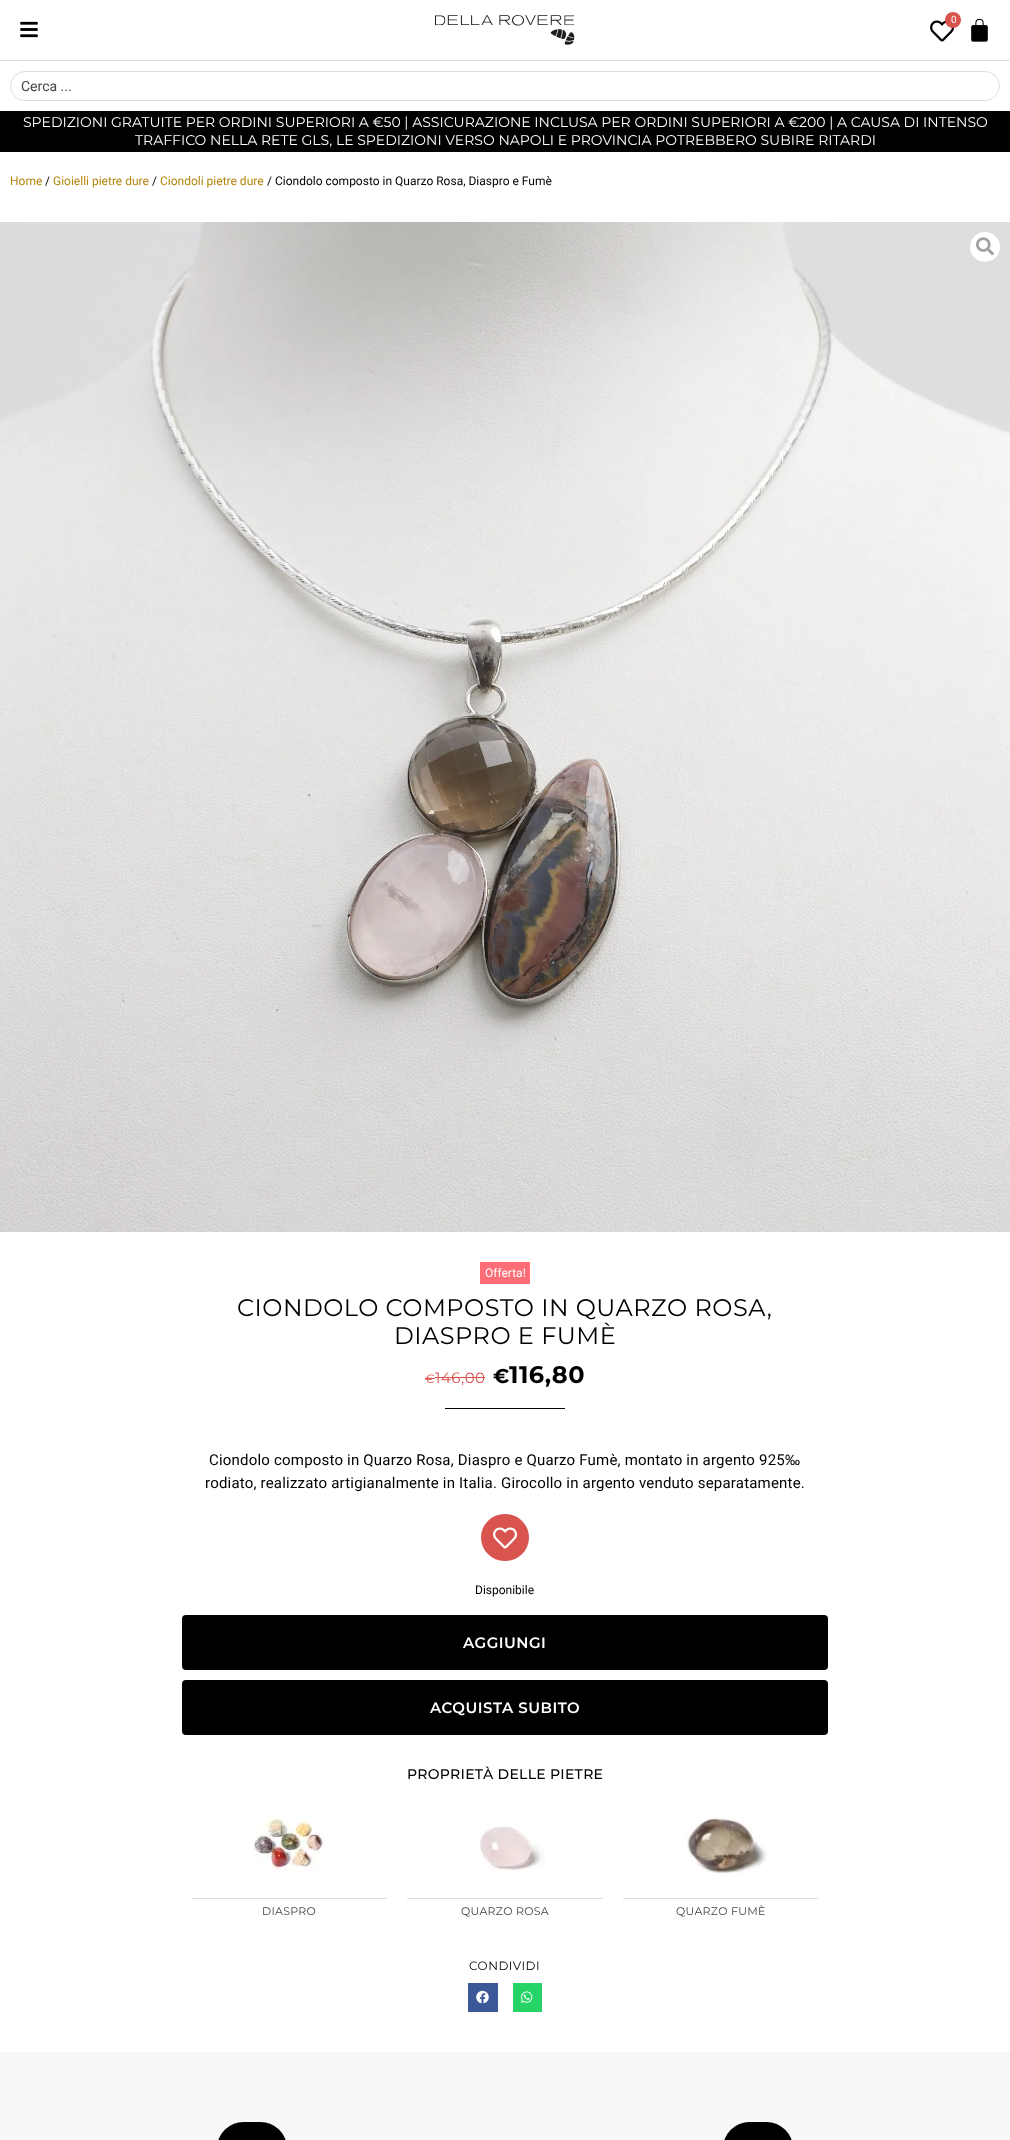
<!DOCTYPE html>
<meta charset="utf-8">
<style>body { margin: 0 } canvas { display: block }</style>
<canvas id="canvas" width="1010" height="2140"></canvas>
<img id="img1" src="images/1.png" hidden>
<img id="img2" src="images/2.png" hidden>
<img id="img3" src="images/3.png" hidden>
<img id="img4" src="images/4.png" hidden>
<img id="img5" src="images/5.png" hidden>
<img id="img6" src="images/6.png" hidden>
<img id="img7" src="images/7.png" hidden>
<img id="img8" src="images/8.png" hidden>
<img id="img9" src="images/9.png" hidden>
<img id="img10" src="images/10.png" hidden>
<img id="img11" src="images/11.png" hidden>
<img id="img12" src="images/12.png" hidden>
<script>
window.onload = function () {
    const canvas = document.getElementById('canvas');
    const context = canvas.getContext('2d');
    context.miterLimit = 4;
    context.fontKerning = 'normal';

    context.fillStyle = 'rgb(255, 255, 255)';
    context.fillRect(0, 0, 1010, 2140);
    context.fillStyle = 'rgb(222, 222, 222)';
    context.fillRect(0, 60, 1010, 1);
    context.drawImage(document.getElementById('img1'), 435, 15, 140, 30);
    context.drawImage(document.getElementById('img2'), 930, 20, 25, 22);
    context.fillStyle = 'rgb(217, 83, 79)';
    context.beginPath();
    context.arc(953, 20, 8, 0, 2 * Math.PI);
    context.fill();
    context.drawImage(document.getElementById('img3'), 971, 18, 17, 24);
    context.drawImage(document.getElementById('img4'), 20, 21, 18, 17);
    context.beginPath();
    context.roundRect(10.5, 71.5, 989, 29, 14.5);
    context.strokeStyle = 'rgb(222, 222, 222)';
    context.stroke();
    context.fillStyle = 'rgb(0, 0, 0)';
    context.fillRect(0, 111, 1010, 41);
    context.drawImage(document.getElementById('img5'), 0, 222, 1010, 1010);
    context.fillStyle = 'rgb(255, 255, 255)';
    context.beginPath();
    context.arc(985, 247, 15, 0, 2 * Math.PI);
    context.fill();
    context.drawImage(document.getElementById('img6'), 976, 237, 18, 19);
    context.fillStyle = 'rgb(253, 109, 117)';
    context.fillRect(480, 1262, 50, 22);
    context.fillStyle = 'rgb(217, 83, 79)';
    context.fillRect(425, 1378, 10, 1);
    context.fillRect(435, 1377, 50, 1);
    context.fillStyle = 'rgb(0, 0, 0)';
    context.fillRect(445, 1408, 120, 1);
    context.fillStyle = 'rgb(217, 83, 79)';
    context.beginPath();
    context.roundRect(481, 1514, 48, 47, 23.5);
    context.fill();
    context.drawImage(document.getElementById('img7'), 493, 1527, 25, 22);
    context.fillStyle = 'rgb(0, 0, 0)';
    context.beginPath();
    context.roundRect(182, 1615, 646, 55, 4);
    context.fill();
    context.beginPath();
    context.roundRect(182, 1680, 646, 55, 4);
    context.fill();
    context.drawImage(document.getElementById('img8'), 252, 1817, 72, 56);
    context.fillStyle = 'rgb(222, 222, 222)';
    context.fillRect(192, 1898, 195, 1);
    context.drawImage(document.getElementById('img9'), 479, 1825, 66, 46);
    context.fillRect(407, 1898, 196, 1);
    context.drawImage(document.getElementById('img10'), 686, 1817, 81, 57);
    context.fillRect(623, 1898, 195, 1);
    context.fillStyle = 'rgb(59, 89, 152)';
    context.fillRect(468, 1983, 30, 29);
    context.drawImage(document.getElementById('img11'), 476, 1990, 13, 14);
    context.fillStyle = 'rgb(37, 211, 102)';
    context.fillRect(513, 1983, 29, 29);
    context.drawImage(document.getElementById('img12'), 521, 1991, 12, 12);
    context.fillStyle = 'rgb(248, 248, 248)';
    context.fillRect(0, 2052, 1010, 88);
    context.fillStyle = 'rgb(0, 0, 0)';
    context.beginPath();
    context.roundRect(217, 2122, 70, 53, 35);
    context.fill();
    context.beginPath();
    context.roundRect(723, 2122, 70, 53, 35);
    context.fill();
    context.font = '10px Roboto';
    context.fillStyle = 'rgb(255, 255, 255)';
    context.fillText('0', 951, 23);
    context.font = '14px Roboto';
    context.fillStyle = 'rgb(68, 68, 68)';
    context.fillText('Cerca ...', 21, 91);
    context.font = '14px Montserrat';
    context.fillStyle = 'rgb(255, 255, 255)';
    context.fillText('SPEDIZIONI GRATUITE PER ORDINI SUPERIORI A €50 | ASSICURAZIONE INCLUSA PER ORDINI SUPERIORI A €200 | A CAUSA DI INTENSO', 23, 127);
    context.fillText('TRAFFICO NELLA RETE GLS, LE SPEDIZIONI VERSO NAPOLI E PROVINCIA POTREBBERO SUBIRE RITARDI', 135, 145);
    context.font = '12px Roboto';
    context.fillStyle = 'rgb(179, 134, 13)';
    context.fillText('Home', 10, 185);
    context.fillStyle = 'rgb(0, 0, 0)';
    context.fillText('/', 45, 185);
    context.fillStyle = 'rgb(179, 134, 13)';
    context.fillText('Gioielli pietre dure', 53, 185);
    context.fillStyle = 'rgb(0, 0, 0)';
    context.fillText('/', 152, 185);
    context.fillStyle = 'rgb(179, 134, 13)';
    context.fillText('Ciondoli pietre dure', 160, 185);
    context.fillStyle = 'rgb(0, 0, 0)';
    context.fillText('/ Ciondolo composto in Quarzo Rosa, Diaspro e Fumè', 267, 185);
    context.fillStyle = 'rgb(255, 255, 255)';
    context.fillText('Offerta!', 485, 1277);
    context.letterSpacing = '0.5px';
    context.font = '24px Montserrat';
    context.fillStyle = 'rgb(0, 0, 0)';
    context.fillText('CIONDOLO COMPOSTO IN QUARZO ROSA,', 237, 1316);
    context.fillText('DIASPRO E FUMÈ', 394, 1344);
    context.font = '12px Montserrat';
    context.fillStyle = 'rgb(217, 83, 79)';
    context.fillText('€', 425, 1383);
    context.font = '15px Montserrat';
    context.fillText('146,00', 435, 1383);
    context.font = 'bold 20px Montserrat';
    context.fillStyle = 'rgb(0, 0, 0)';
    context.fillText('€', 493, 1383);
    context.font = 'bold 24px Montserrat';
    context.fillText('116,80', 509, 1383);
    context.letterSpacing = '0.2px';
    context.font = '15px Roboto';
    context.fillText('Ciondolo composto in Quarzo Rosa, Diaspro e Quarzo Fumè, montato in argento 925', 209, 1465);
    context.font = '15px Liberation Sans';
    context.fillText('‰', 785, 1465);
    context.font = '15px Roboto';
    context.fillText('rodiato, realizzato artigianalmente in Italia. Girocollo in argento venduto separatamente.', 205, 1488);
    context.letterSpacing = '0px';
    context.font = '12px Roboto';
    context.fillText('Disponibile', 475, 1594);
    context.letterSpacing = '0.5px';
    context.font = '600 15px Montserrat';
    context.fillStyle = 'rgb(255, 255, 255)';
    context.fillText('AGGIUNGI', 463, 1648);
    context.fillText('ACQUISTA SUBITO', 430, 1713);
    context.letterSpacing = '0.3px';
    context.font = '500 14px Montserrat';
    context.fillStyle = 'rgb(0, 0, 0)';
    context.fillText('PROPRIETÀ DELLE PIETRE', 407, 1779);
    context.font = '11px Montserrat';
    context.fillStyle = 'rgb(68, 68, 68)';
    context.fillText('DIASPRO', 262, 1915);
    context.fillText('QUARZO ROSA', 461, 1915);
    context.fillText('QUARZO FUMÈ', 676, 1915);
    context.letterSpacing = '0.5px';
    context.font = '12px Montserrat';
    context.fillStyle = 'rgb(0, 0, 0)';
    context.fillText('CONDIVIDI', 469, 1970);
};
</script>
